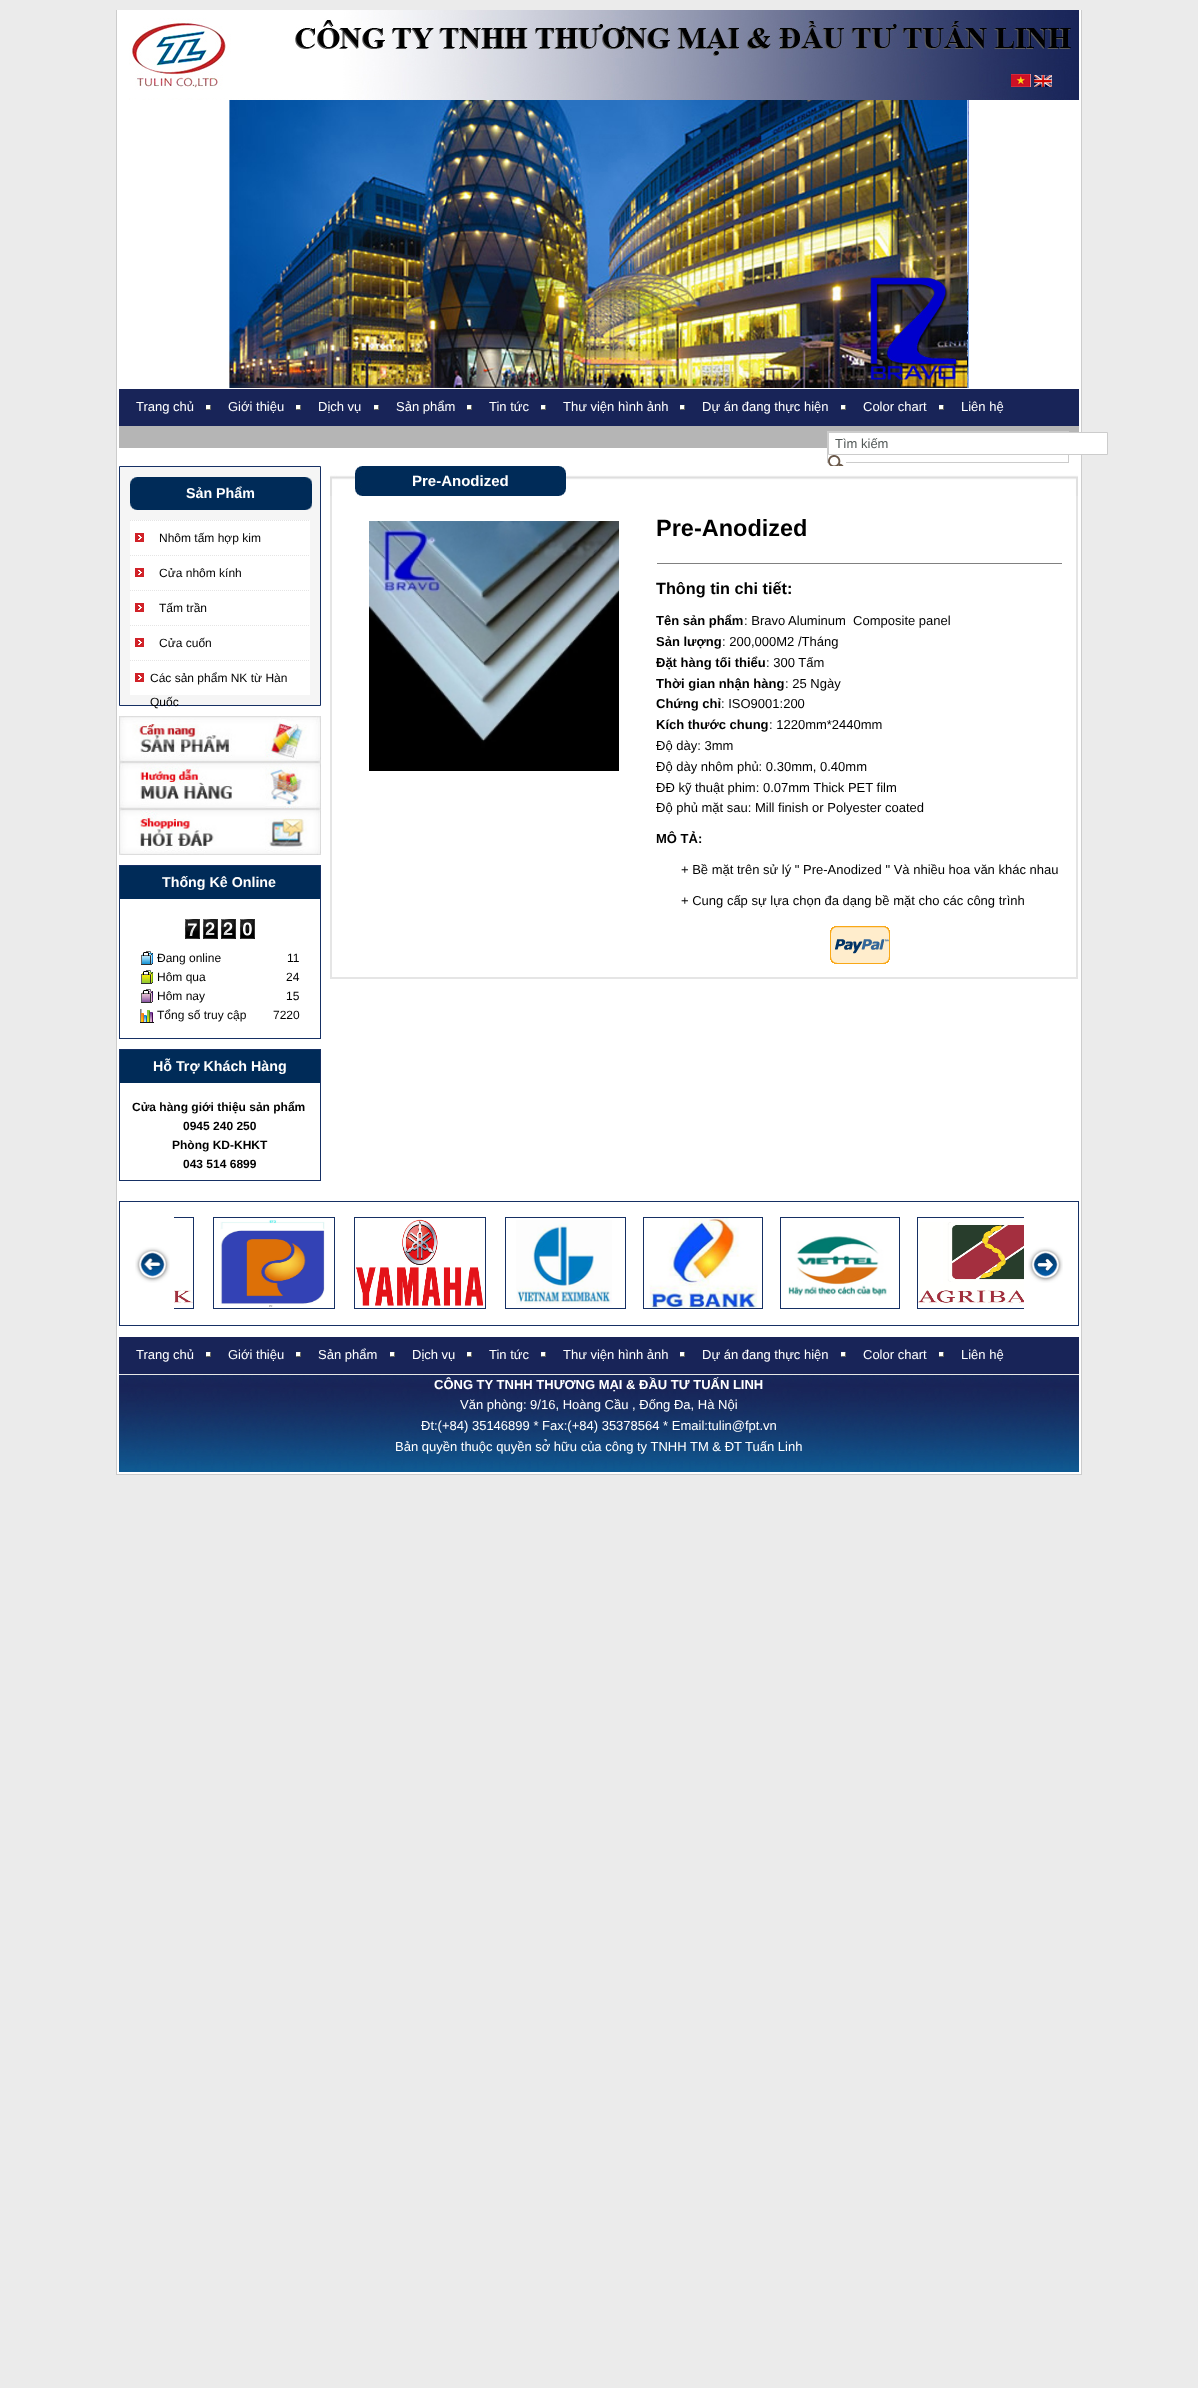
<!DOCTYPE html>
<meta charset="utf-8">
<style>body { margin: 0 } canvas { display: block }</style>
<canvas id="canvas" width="1198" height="2388"></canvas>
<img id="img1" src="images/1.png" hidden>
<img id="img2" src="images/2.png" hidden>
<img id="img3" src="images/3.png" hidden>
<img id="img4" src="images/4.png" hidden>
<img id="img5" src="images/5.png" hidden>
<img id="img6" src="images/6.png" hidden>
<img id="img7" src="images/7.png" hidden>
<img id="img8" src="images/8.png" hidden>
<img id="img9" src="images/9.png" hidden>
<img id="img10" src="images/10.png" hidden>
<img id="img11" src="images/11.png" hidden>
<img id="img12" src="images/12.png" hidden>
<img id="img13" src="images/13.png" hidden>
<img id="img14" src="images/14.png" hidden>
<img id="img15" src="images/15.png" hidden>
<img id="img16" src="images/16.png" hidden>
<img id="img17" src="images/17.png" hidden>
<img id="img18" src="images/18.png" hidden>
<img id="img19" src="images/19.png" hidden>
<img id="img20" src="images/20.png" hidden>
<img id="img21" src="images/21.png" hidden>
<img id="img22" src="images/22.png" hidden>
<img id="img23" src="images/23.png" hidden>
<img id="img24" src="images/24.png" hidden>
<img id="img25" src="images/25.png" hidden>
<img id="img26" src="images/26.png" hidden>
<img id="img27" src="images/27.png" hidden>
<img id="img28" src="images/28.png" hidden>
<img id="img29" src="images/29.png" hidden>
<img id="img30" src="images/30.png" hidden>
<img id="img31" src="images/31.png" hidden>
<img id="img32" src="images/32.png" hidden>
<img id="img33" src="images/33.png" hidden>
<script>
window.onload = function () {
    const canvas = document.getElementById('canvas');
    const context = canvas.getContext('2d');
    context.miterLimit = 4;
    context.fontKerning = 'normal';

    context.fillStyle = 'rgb(235, 235, 235)';
    context.fillRect(0, 0, 1198, 2388);
    context.fillStyle = 'rgb(255, 255, 255)';
    context.fillRect(117, 10, 964, 1464);
    context.fillStyle = 'rgb(204, 204, 204)';
    context.fillRect(1081, 10, 1, 1465);
    context.fillRect(116, 1474, 966, 1);
    context.fillRect(116, 10, 1, 1465);
    context.drawImage(document.getElementById('img1'), 129, 10, 950, 90);
    context.drawImage(document.getElementById('img2'), 1011, 74, 20, 13);
    context.drawImage(document.getElementById('img3'), 1034, 75, 18, 12);
    context.drawImage(document.getElementById('img4'), 229, 100, 740, 288);
    context.fillStyle = 'rgb(24, 36, 88)';
    context.fillRect(119, 389, 960, 37);
    context.drawImage(document.getElementById('img5'), 206, 405, 5, 5);
    context.drawImage(document.getElementById('img5'), 296, 405, 5, 5);
    context.drawImage(document.getElementById('img5'), 374, 405, 5, 5);
    context.drawImage(document.getElementById('img5'), 467, 405, 5, 5);
    context.drawImage(document.getElementById('img5'), 541, 405, 5, 5);
    context.drawImage(document.getElementById('img5'), 680, 405, 5, 5);
    context.drawImage(document.getElementById('img5'), 841, 405, 5, 5);
    context.drawImage(document.getElementById('img5'), 939, 405, 5, 5);
    context.fillStyle = 'rgb(181, 181, 181)';
    context.fillRect(119, 426, 960, 22);
    context.strokeStyle = 'rgb(204, 204, 204)';
    context.strokeRect(827.5, 431.5, 241, 31);
    context.fillStyle = 'rgb(255, 255, 255)';
    context.beginPath();
    context.rect(828.5, 432.5, 279, 22);
    context.fill();
    context.stroke();
    context.drawImage(document.getElementById('img6'), 828, 455, 18, 11);
    context.fillStyle = 'rgb(245, 245, 245)';
    context.beginPath();
    context.rect(119.5, 466.5, 201, 239);
    context.fill();
    context.strokeStyle = 'rgb(22, 48, 100)';
    context.stroke();
    context.drawImage(document.getElementById('img7'), 130, 477, 182, 33);
    context.fillStyle = 'rgb(255, 255, 255)';
    context.fillRect(130, 520, 180, 175);
    context.beginPath();
    context.moveTo(130, 520.5);
    context.lineTo(310, 520.5);
    context.strokeStyle = 'rgb(229, 229, 229)';
    context.setLineDash([1, 1]);
    context.stroke();
    context.drawImage(document.getElementById('img8'), 135, 533, 9, 9);
    context.beginPath();
    context.moveTo(130, 555.5);
    context.lineTo(310, 555.5);
    context.stroke();
    context.drawImage(document.getElementById('img8'), 135, 568, 9, 9);
    context.beginPath();
    context.moveTo(130, 590.5);
    context.lineTo(310, 590.5);
    context.stroke();
    context.drawImage(document.getElementById('img8'), 135, 603, 9, 9);
    context.beginPath();
    context.moveTo(130, 625.5);
    context.lineTo(310, 625.5);
    context.stroke();
    context.drawImage(document.getElementById('img8'), 135, 638, 9, 9);
    context.beginPath();
    context.moveTo(130, 660.5);
    context.lineTo(310, 660.5);
    context.stroke();
    context.drawImage(document.getElementById('img8'), 135, 673, 9, 9);
    context.drawImage(document.getElementById('img9'), 119, 716, 202, 46);
    context.drawImage(document.getElementById('img10'), 119, 762, 202, 47);
    context.drawImage(document.getElementById('img11'), 119, 809, 202, 46);
    context.strokeStyle = 'rgb(22, 48, 100)';
    context.setLineDash([]);
    context.strokeRect(119.5, 865.5, 201, 173);
    context.fillStyle = 'rgb(0, 43, 88)';
    context.fillRect(120, 866, 200, 33);
    context.drawImage(document.getElementById('img12'), 185, 919, 15, 20);
    context.drawImage(document.getElementById('img13'), 203, 919, 15, 20);
    context.drawImage(document.getElementById('img13'), 221, 919, 15, 20);
    context.drawImage(document.getElementById('img14'), 240, 919, 15, 20);
    context.drawImage(document.getElementById('img15'), 141, 951, 12, 14);
    context.drawImage(document.getElementById('img16'), 141, 970, 12, 14);
    context.drawImage(document.getElementById('img17'), 141, 989, 12, 14);
    context.drawImage(document.getElementById('img18'), 140, 1009, 14, 14);
    context.strokeRect(119.5, 1049.5, 201, 131);
    context.fillRect(120, 1050, 200, 33);
    context.drawImage(document.getElementById('img19'), 330, 466, 748, 30);
    context.drawImage(document.getElementById('img20'), 355, 466, 7, 30);
    context.fillRect(362, 466, 197, 30);
    context.drawImage(document.getElementById('img21'), 559, 466, 7, 30);
    context.fillStyle = 'rgb(229, 229, 229)';
    context.fillRect(1076, 496, 2, 483);
    context.fillRect(330, 977, 748, 2);
    context.fillRect(330, 496, 2, 483);
    context.drawImage(document.getElementById('img22'), 369, 521, 250, 250);
    context.fillStyle = 'rgb(128, 128, 128)';
    context.fillRect(657, 563, 405, 1);
    context.drawImage(document.getElementById('img23'), 830, 926, 60, 38);
    context.fillStyle = 'rgb(22, 48, 100)';
    context.fillRect(119, 1325, 960, 1);
    context.fillRect(119, 1201, 960, 1);
    context.fillRect(1078, 1201, 1, 124);
    context.fillRect(119, 1201, 1, 124);
    context.save();
    context.beginPath();
    context.rect(174, 1217, 850, 95);
    context.clip();
    context.strokeRect(42.5, 1217.5, 151, 91);
    context.restore();
    context.drawImage(document.getElementById('img24'), 174, 1290, 19, 13);
    context.strokeRect(213.5, 1217.5, 121, 91);
    context.drawImage(document.getElementById('img25'), 220, 1220, 105, 87);
    context.strokeRect(354.5, 1217.5, 131, 91);
    context.drawImage(document.getElementById('img26'), 356, 1219, 128, 87);
    context.strokeRect(505.5, 1217.5, 120, 91);
    context.drawImage(document.getElementById('img27'), 516, 1220, 96, 84);
    context.strokeRect(643.5, 1217.5, 119, 91);
    context.drawImage(document.getElementById('img28'), 649, 1218, 109, 90);
    context.strokeRect(780.5, 1217.5, 119, 91);
    context.drawImage(document.getElementById('img29'), 788, 1236, 99, 60);
    context.save();
    context.beginPath();
    context.rect(174, 1217, 850, 95);
    context.clip();
    context.strokeRect(917.5, 1217.5, 151, 91);
    context.restore();
    context.drawImage(document.getElementById('img30'), 918, 1222, 106, 81);
    context.drawImage(document.getElementById('img31'), 135, 1247, 35, 36);
    context.drawImage(document.getElementById('img32'), 1028, 1247, 35, 36);
    context.fillStyle = 'rgb(24, 36, 88)';
    context.fillRect(119, 1337, 960, 37);
    context.drawImage(document.getElementById('img5'), 206, 1352, 5, 5);
    context.drawImage(document.getElementById('img5'), 296, 1352, 5, 5);
    context.drawImage(document.getElementById('img5'), 390, 1352, 5, 5);
    context.drawImage(document.getElementById('img5'), 467, 1352, 5, 5);
    context.drawImage(document.getElementById('img5'), 541, 1352, 5, 5);
    context.drawImage(document.getElementById('img5'), 680, 1352, 5, 5);
    context.drawImage(document.getElementById('img5'), 841, 1352, 5, 5);
    context.drawImage(document.getElementById('img5'), 939, 1352, 5, 5);
    context.drawImage(document.getElementById('img33'), 119, 1375, 960, 97);
    context.fillStyle = 'rgb(231, 232, 230)';
    context.fillRect(119, 1374, 960, 1);
    context.font = '13px Liberation Sans';
    context.fillStyle = 'rgb(255, 255, 255)';
    context.fillText('Trang chủ', 136, 411);
    context.fillText('Giới thiệu', 228, 411);
    context.fillText('Dịch vụ', 318, 411);
    context.fillText('Sản phẩm', 396, 411);
    context.fillText('Tin tức', 489, 411);
    context.fillText('Thư viện hình ảnh', 563, 411);
    context.fillText('Dự án đang thực hiện', 702, 411);
    context.fillText('Color chart', 863, 411);
    context.fillText('Liên hệ', 961, 411);
    context.fillStyle = 'rgb(81, 87, 86)';
    context.fillText('Tìm kiếm', 835, 448);
    context.font = 'bold 14.25px Liberation Sans';
    context.fillStyle = 'rgb(255, 255, 255)';
    context.fillText('Sản Phẩm', 186, 498);
    context.font = '12px Liberation Sans';
    context.fillStyle = 'rgb(0, 0, 0)';
    context.fillText('Nhôm tấm hợp kim', 159, 542);
    context.fillText('Cửa nhôm kính', 159, 577);
    context.fillText('Tấm trần', 159, 612);
    context.fillText('Cửa cuốn', 159, 647);
    context.fillText('Các sản phẩm NK từ Hàn', 150, 682);
    context.fillText('Quốc', 150, 706);
    context.font = 'bold 14.25px Liberation Sans';
    context.fillStyle = 'rgb(255, 255, 255)';
    context.fillText('Thống Kê Online', 162, 887);
    context.font = '12px Liberation Sans';
    context.fillStyle = 'rgb(0, 0, 0)';
    context.fillText('Đang online', 157, 962);
    context.fillText('11', 287, 962);
    context.fillText('Hôm qua', 157, 981);
    context.fillText('24', 286, 981);
    context.fillText('Hôm nay', 157, 1000);
    context.fillText('15', 286, 1000);
    context.fillText('Tổng số truy cập', 157, 1019);
    context.fillText('7220', 273, 1019);
    context.font = 'bold 14.25px Liberation Sans';
    context.fillStyle = 'rgb(255, 255, 255)';
    context.fillText('Hỗ Trợ Khách Hàng', 153, 1071);
    context.font = 'bold 12px Liberation Sans';
    context.fillStyle = 'rgb(0, 0, 0)';
    context.fillText('Cửa hàng giới thiệu sản phẩm', 132, 1111);
    context.fillText('0945 240 250', 183, 1130);
    context.fillText('Phòng KD-KHKT', 172, 1149);
    context.fillText('043 514 6899', 183, 1168);
    context.font = 'bold 15px Liberation Sans';
    context.fillStyle = 'rgb(255, 255, 255)';
    context.fillText('Pre-Anodized', 412, 486);
    context.font = 'bold 23.5px Liberation Sans';
    context.fillStyle = 'rgb(0, 0, 0)';
    context.fillText('Pre-Anodized', 656, 536);
    context.font = 'bold 16.25px Liberation Sans';
    context.fillText('Thông tin chi tiết:', 656, 594);
    context.font = 'bold 13px Liberation Sans';
    context.fillText('Tên sản phẩm', 656, 625);
    context.font = '13px Liberation Sans';
    context.fillText(': Bravo Aluminum  Composite panel', 744, 625);
    context.font = 'bold 13px Liberation Sans';
    context.fillText('Sản lượng', 656, 646);
    context.font = '13px Liberation Sans';
    context.fillText(': 200,000M2 /Tháng', 722, 646);
    context.font = 'bold 13px Liberation Sans';
    context.fillText('Đặt hàng tối thiểu', 656, 667);
    context.font = '13px Liberation Sans';
    context.fillText(': 300 Tấm', 766, 667);
    context.font = 'bold 13px Liberation Sans';
    context.fillText('Thời gian nhận hàng', 656, 688);
    context.font = '13px Liberation Sans';
    context.fillText(': 25 Ngày', 785, 688);
    context.font = 'bold 13px Liberation Sans';
    context.fillText('Chứng chỉ', 656, 708);
    context.font = '13px Liberation Sans';
    context.fillText(': ISO9001:200', 721, 708);
    context.font = 'bold 13px Liberation Sans';
    context.fillText('Kích thước chung', 656, 729);
    context.font = '13px Liberation Sans';
    context.fillText(': 1220mm*2440mm', 769, 729);
    context.fillText('Độ dày: 3mm', 656, 750);
    context.fillText('Độ dày nhôm phủ: 0.30mm, 0.40mm', 656, 771);
    context.fillText('ĐĐ kỹ thuật phim: 0.07mm Thick PET film', 656, 792);
    context.fillText('Độ phủ mặt sau: Mill finish or Polyester coated', 656, 812);
    context.font = 'bold 13px Liberation Sans';
    context.fillText('MÔ TẢ:', 656, 843);
    context.font = '13px Liberation Sans';
    context.fillText('+ Bề mặt trên sử lý " Pre-Anodized " Và nhiều hoa văn khác nhau', 681, 874);
    context.fillText('+ Cung cấp sự lựa chọn đa dạng bề mặt cho các công trình', 681, 905);
    context.fillStyle = 'rgb(255, 255, 255)';
    context.fillText('Trang chủ', 136, 1359);
    context.fillText('Giới thiệu', 228, 1359);
    context.fillText('Sản phẩm', 318, 1359);
    context.fillText('Dịch vụ', 412, 1359);
    context.fillText('Tin tức', 489, 1359);
    context.fillText('Thư viện hình ảnh', 563, 1359);
    context.fillText('Dự án đang thực hiện', 702, 1359);
    context.fillText('Color chart', 863, 1359);
    context.fillText('Liên hệ', 961, 1359);
    context.font = 'bold 13px Liberation Sans';
    context.fillText('CÔNG TY TNHH THƯƠNG MẠI & ĐẦU TƯ TUẤN LINH', 434, 1389);
    context.font = '13px Liberation Sans';
    context.fillText('Văn phòng: 9/16, Hoàng Cầu , Đống Đa, Hà Nội', 460, 1409);
    context.fillText('Đt:(+84) 35146899 * Fax:(+84) 35378564 * Email:tulin@fpt.vn', 421, 1430);
    context.fillText('Bản quyền thuộc quyền sở hữu của công ty TNHH TM & ĐT Tuấn Linh', 395, 1451);
};
</script>
